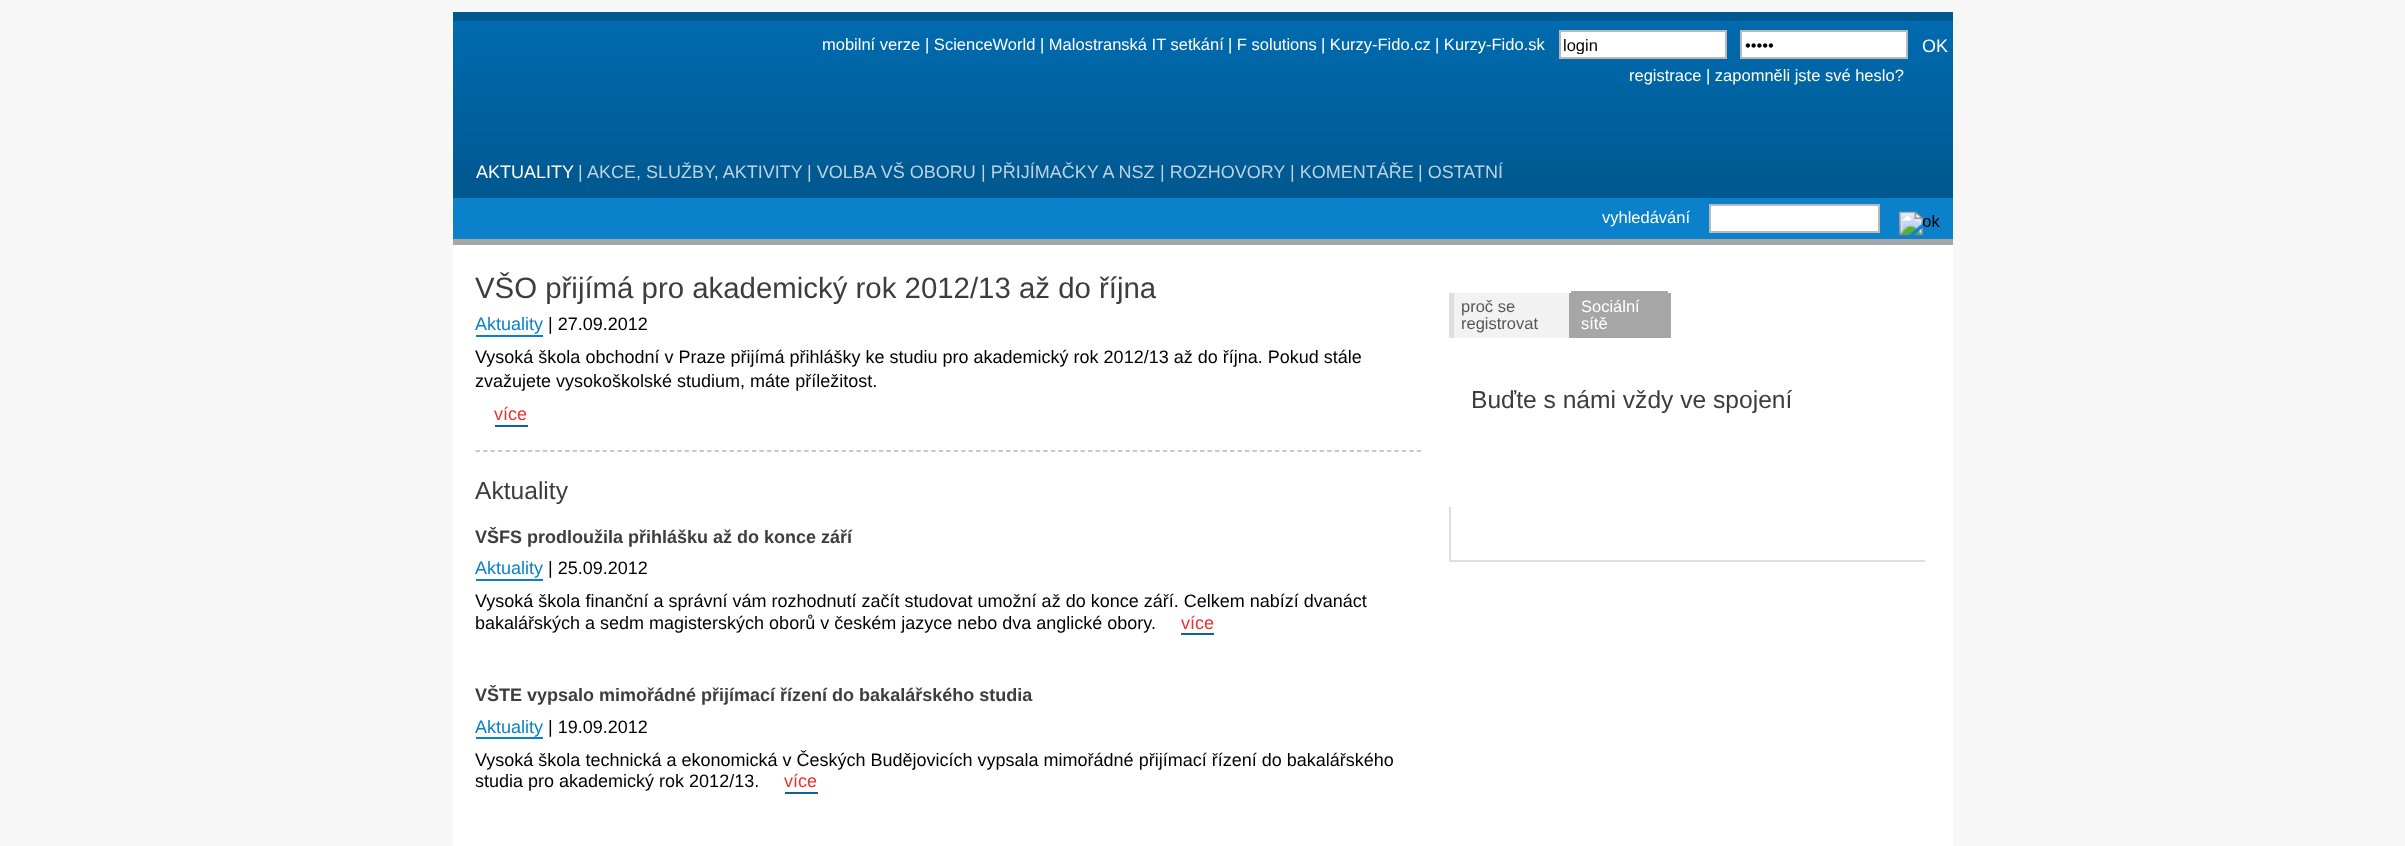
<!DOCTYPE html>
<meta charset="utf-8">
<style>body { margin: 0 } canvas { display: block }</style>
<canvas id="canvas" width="2405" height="846"></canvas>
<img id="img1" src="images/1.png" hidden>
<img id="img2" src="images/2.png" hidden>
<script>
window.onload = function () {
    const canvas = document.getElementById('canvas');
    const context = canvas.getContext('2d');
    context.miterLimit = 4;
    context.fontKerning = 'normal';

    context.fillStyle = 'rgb(247, 247, 247)';
    context.fillRect(0, 0, 2405, 846);
    context.fillStyle = 'rgb(255, 255, 255)';
    context.fillRect(453, 245, 1500, 601);
    context.fillStyle = 'rgb(0, 89, 145)';
    context.fillRect(453, 12, 1500, 186);
    context.drawImage(document.getElementById('img1'), 453, 21, 1500, 145);
    context.fillStyle = 'rgb(255, 255, 255)';
    context.beginPath();
    context.rect(1560, 31, 166, 27);
    context.fill();
    context.strokeStyle = 'rgb(185, 185, 185)';
    context.lineWidth = 2;
    context.stroke();
    context.beginPath();
    context.rect(1741, 31, 166, 27);
    context.fill();
    context.stroke();
    context.fillStyle = 'rgb(11, 129, 204)';
    context.fillRect(453, 198, 1500, 41);
    context.fillStyle = 'rgb(166, 166, 166)';
    context.fillRect(453, 239, 1500, 6);
    context.fillStyle = 'rgb(255, 255, 255)';
    context.beginPath();
    context.rect(1710, 205, 169, 27);
    context.fill();
    context.stroke();
    context.drawImage(document.getElementById('img2'), 1899, 211, 41, 25);
    context.fillStyle = 'rgb(11, 129, 204)';
    context.fillRect(476, 335, 67, 2);
    context.fillStyle = 'rgb(9, 100, 158)';
    context.fillRect(495, 425, 33, 2);
    context.beginPath();
    context.moveTo(475.5, 451);
    context.lineTo(1422, 451);
    context.strokeStyle = 'rgb(184, 184, 184)';
    context.lineWidth = 1.5;
    context.setLineDash([4.5, 2.97]);
    context.stroke();
    context.fillStyle = 'rgb(11, 129, 204)';
    context.fillRect(476, 579, 67, 2);
    context.fillStyle = 'rgb(9, 100, 158)';
    context.fillRect(1181, 633, 33, 2);
    context.fillStyle = 'rgb(11, 129, 204)';
    context.fillRect(476, 737, 67, 2);
    context.fillStyle = 'rgb(9, 100, 158)';
    context.fillRect(785, 792, 33, 2);
    context.fillStyle = 'rgb(222, 222, 222)';
    context.fillRect(1449, 293, 5, 45);
    context.fillStyle = 'rgb(242, 242, 242)';
    context.fillRect(1454, 293, 115, 45);
    context.fillStyle = 'rgb(255, 255, 255)';
    context.fillRect(1568, 293, 2, 2);
    context.fillStyle = 'rgb(166, 166, 166)';
    context.fillRect(1569, 293, 102, 45);
    context.fillRect(1571, 291, 97, 2);
    context.fillStyle = 'rgb(222, 222, 222)';
    context.fillRect(1449, 560, 476, 2);
    context.fillRect(1449, 507, 2, 53);
    context.font = '16.5px Liberation Sans';
    context.fillStyle = 'rgb(255, 255, 255)';
    context.fillText('mobilní verze', 822, 50);
    context.fillText('| ScienceWorld', 925, 50);
    context.fillText('| Malostranská IT setkání', 1040, 50);
    context.fillText('| F solutions', 1228, 50);
    context.fillText('| Kurzy-Fido.cz', 1321, 50);
    context.fillText('| Kurzy-Fido.sk', 1435, 50);
    context.save();
    context.beginPath();
    context.rect(1563, 36, 158, 18);
    context.clip();
    context.fillStyle = 'rgb(0, 0, 0)';
    context.fillText('login', 1563, 51);
    context.restore();
    context.fillStyle = 'rgb(0, 0, 0)';
    context.fillText('•••••', 1745, 51);
    context.font = '18px Liberation Sans';
    context.fillStyle = 'rgb(255, 255, 255)';
    context.fillText('OK', 1922, 52);
    context.font = '16.5px Liberation Sans';
    context.fillText('registrace', 1629, 81);
    context.fillText('| zapomněli jste své heslo?', 1706, 81);
    context.font = '18px Liberation Sans';
    context.fillText('AKTUALITY', 476, 178);
    context.fillStyle = 'rgb(187, 211, 226)';
    context.fillText('|', 578, 178);
    context.fillText('AKCE, SLUŽBY, AKTIVITY', 587, 178);
    context.fillText('| VOLBA VŠ OBORU', 807, 178);
    context.fillText('| PŘIJÍMAČKY A NSZ', 981, 178);
    context.fillText('| ROZHOVORY', 1160, 178);
    context.fillText('| KOMENTÁŘE', 1290, 178);
    context.fillText('| OSTATNÍ', 1418, 178);
    context.font = '16.5px Liberation Sans';
    context.fillStyle = 'rgb(255, 255, 255)';
    context.fillText('vyhledávání', 1602, 223);
    context.font = '29.4px Liberation Sans';
    context.fillStyle = 'rgb(61, 61, 61)';
    context.fillText('VŠO přijímá pro akademický rok 2012/13 až do října', 475, 298);
    context.font = '18px Liberation Sans';
    context.fillStyle = 'rgb(11, 129, 204)';
    context.fillText('Aktuality', 475, 330);
    context.fillStyle = 'rgb(0, 0, 0)';
    context.fillText('| 27.09.2012', 548, 330);
    context.fillText('Vysoká škola obchodní v Praze přijímá přihlášky ke studiu pro akademický rok 2012/13 až do října. Pokud stále', 475, 363);
    context.fillText('zvažujete vysokoškolské studium, máte příležitost.', 475, 387);
    context.fillStyle = 'rgb(233, 50, 50)';
    context.fillText('více', 494, 420);
    context.font = '24.6px Liberation Sans';
    context.fillStyle = 'rgb(61, 61, 61)';
    context.fillText('Aktuality', 475, 499);
    context.font = 'bold 18px Liberation Sans';
    context.fillText('VŠFS prodloužila přihlášku až do konce září', 475, 543);
    context.font = '18px Liberation Sans';
    context.fillStyle = 'rgb(11, 129, 204)';
    context.fillText('Aktuality', 475, 574);
    context.fillStyle = 'rgb(0, 0, 0)';
    context.fillText('| 25.09.2012', 548, 574);
    context.fillText('Vysoká škola finanční a správní vám rozhodnutí začít studovat umožní až do konce září. Celkem nabízí dvanáct', 475, 607);
    context.fillText('bakalářských a sedm magisterských oborů v českém jazyce nebo dva anglické obory.', 475, 629);
    context.fillStyle = 'rgb(233, 50, 50)';
    context.fillText('více', 1181, 629);
    context.font = 'bold 18px Liberation Sans';
    context.fillStyle = 'rgb(61, 61, 61)';
    context.fillText('VŠTE vypsalo mimořádné přijímací řízení do bakalářského studia', 475, 701);
    context.font = '18px Liberation Sans';
    context.fillStyle = 'rgb(11, 129, 204)';
    context.fillText('Aktuality', 475, 733);
    context.fillStyle = 'rgb(0, 0, 0)';
    context.fillText('| 19.09.2012', 548, 733);
    context.fillText('Vysoká škola technická a ekonomická v Českých Budějovicích vypsala mimořádné přijímací řízení do bakalářského', 475, 766);
    context.fillText('studia pro akademický rok 2012/13.', 475, 787);
    context.fillStyle = 'rgb(233, 50, 50)';
    context.fillText('více', 784, 787);
    context.font = '16.5px Liberation Sans';
    context.fillStyle = 'rgb(87, 87, 87)';
    context.fillText('proč se', 1461, 312);
    context.fillText('registrovat', 1461, 329);
    context.fillStyle = 'rgb(255, 255, 255)';
    context.fillText('Sociální', 1581, 312);
    context.fillText('sítě', 1581, 329);
    context.font = '24.6px Liberation Sans';
    context.fillStyle = 'rgb(61, 61, 61)';
    context.fillText('Buďte s námi vždy ve spojení', 1471, 408);
};
</script>
